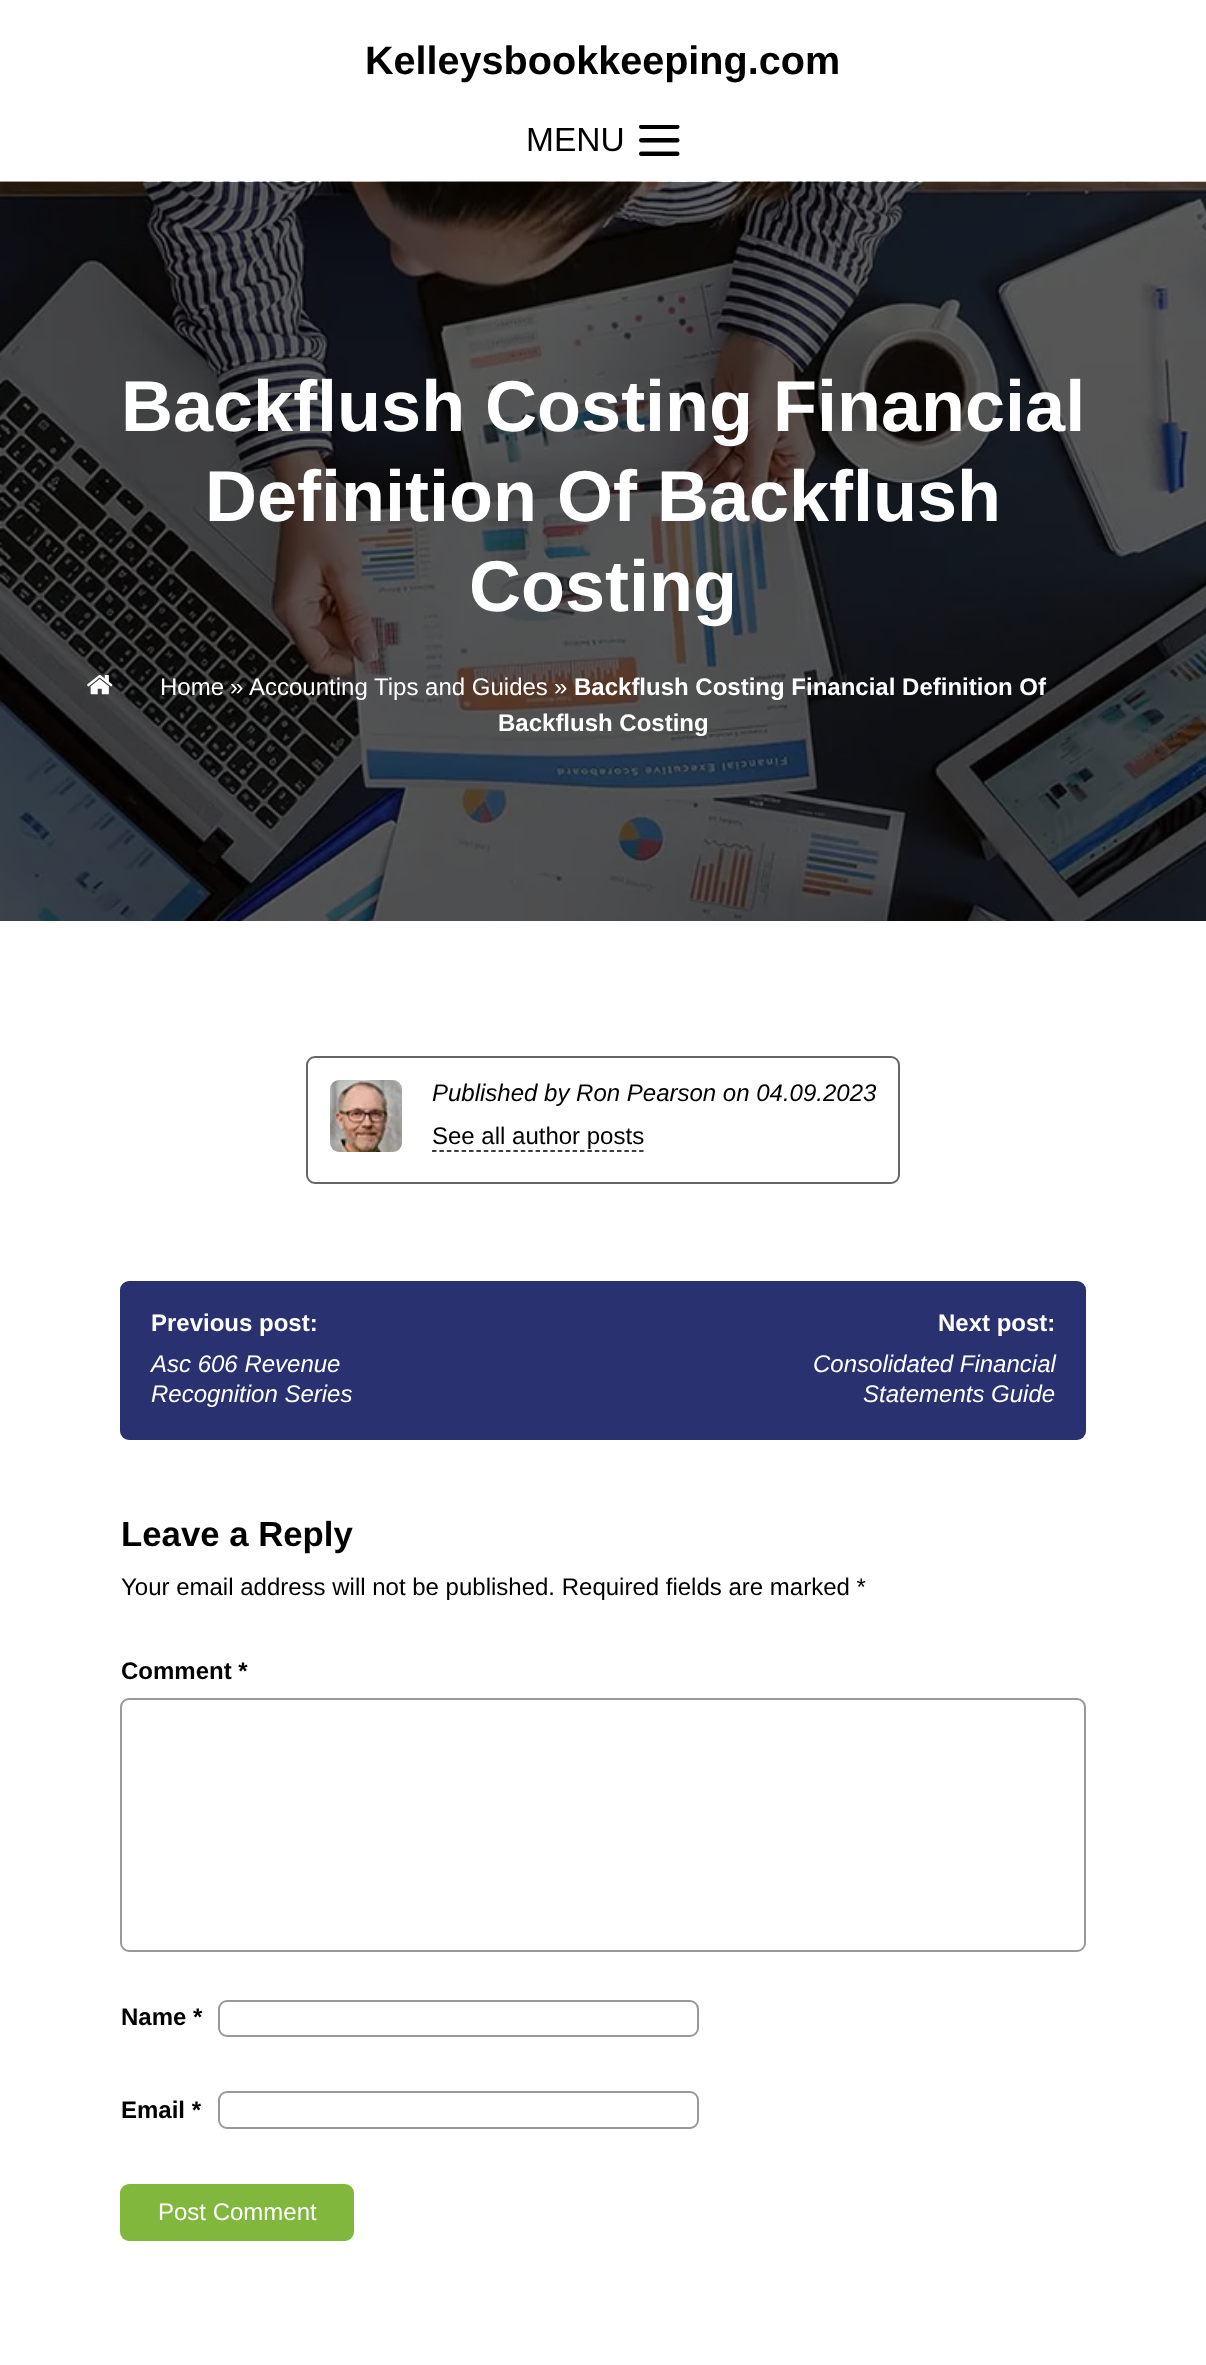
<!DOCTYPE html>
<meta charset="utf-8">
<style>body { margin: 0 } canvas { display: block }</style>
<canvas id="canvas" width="1206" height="2365"></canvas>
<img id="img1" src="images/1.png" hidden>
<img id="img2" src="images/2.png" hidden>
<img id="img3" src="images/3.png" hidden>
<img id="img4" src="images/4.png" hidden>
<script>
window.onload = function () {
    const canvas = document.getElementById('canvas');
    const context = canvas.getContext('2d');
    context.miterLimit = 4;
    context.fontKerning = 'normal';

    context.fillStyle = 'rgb(255, 255, 255)';
    context.fillRect(0, 0, 1206, 2365);
    context.drawImage(document.getElementById('img1'), 639, 125, 41, 31);
    context.drawImage(document.getElementById('img2'), 0, 181, 1206, 740);
    context.drawImage(document.getElementById('img3'), 87, 675, 26, 20);
    context.beginPath();
    context.roundRect(307, 1057, 592, 126, 8);
    context.strokeStyle = 'rgb(102, 102, 102)';
    context.lineWidth = 2;
    context.stroke();
    context.drawImage(document.getElementById('img4'), 330, 1080, 72, 72);
    context.beginPath();
    context.moveTo(432, 1151);
    context.lineTo(643.5, 1151);
    context.strokeStyle = 'rgb(0, 0, 0)';
    context.lineWidth = 1.5;
    context.setLineDash([4.5, 2.9]);
    context.stroke();
    context.fillStyle = 'rgb(41, 49, 112)';
    context.beginPath();
    context.roundRect(120, 1281, 966, 159, 9);
    context.fill();
    context.beginPath();
    context.roundRect(121, 1699, 964, 252, 8);
    context.strokeStyle = 'rgb(153, 153, 153)';
    context.lineWidth = 2;
    context.setLineDash([]);
    context.stroke();
    context.beginPath();
    context.roundRect(219, 2001, 479, 35, 8);
    context.stroke();
    context.beginPath();
    context.roundRect(219, 2092, 479, 36, 8);
    context.stroke();
    context.fillStyle = 'rgb(130, 183, 61)';
    context.beginPath();
    context.roundRect(120, 2184, 234, 57, 9);
    context.fill();
    context.font = 'bold 39.6px Liberation Sans';
    context.fillStyle = 'rgb(0, 0, 0)';
    context.fillText('Kelleysbookkeeping.com', 365, 74);
    context.font = '33.5px Liberation Sans';
    context.fillText('MENU', 526, 151);
    context.font = 'bold 72px Liberation Sans';
    context.fillStyle = 'rgb(255, 255, 255)';
    context.fillText('Backflush Costing Financial', 121, 431);
    context.fillText('Definition Of Backflush', 205, 521);
    context.fillText('Costing', 469, 611);
    context.font = '24px Liberation Sans';
    context.fillText('Home', 160, 695);
    context.fillText('»', 230, 695);
    context.fillText('Accounting Tips and Guides', 249, 695);
    context.fillText('»', 554, 695);
    context.font = 'bold 24px Liberation Sans';
    context.fillText('Backflush Costing Financial Definition Of', 574, 695);
    context.fillText('Backflush Costing', 498, 731);
    context.font = 'italic 24px Liberation Sans';
    context.fillStyle = 'rgb(0, 0, 0)';
    context.fillText('Published by Ron Pearson on 04.09.2023', 432, 1101);
    context.font = '24px Liberation Sans';
    context.fillText('See all author posts', 432, 1144);
    context.font = 'bold 24px Liberation Sans';
    context.fillStyle = 'rgb(255, 255, 255)';
    context.fillText('Previous post:', 151, 1331);
    context.font = 'italic 24px Liberation Sans';
    context.fillText('Asc 606 Revenue', 151, 1372);
    context.fillText('Recognition Series', 151, 1402);
    context.font = 'bold 24px Liberation Sans';
    context.fillText('Next post:', 938, 1331);
    context.font = 'italic 24px Liberation Sans';
    context.fillText('Consolidated Financial', 813, 1372);
    context.fillText('Statements Guide', 863, 1402);
    context.font = 'bold 34.75px Liberation Sans';
    context.fillStyle = 'rgb(0, 0, 0)';
    context.fillText('Leave a Reply', 121, 1546);
    context.font = '24px Liberation Sans';
    context.fillText('Your email address will not be published. Required fields are marked *', 121, 1595);
    context.font = 'bold 24px Liberation Sans';
    context.fillText('Comment *', 121, 1679);
    context.fillText('Name *', 121, 2025);
    context.fillText('Email *', 121, 2118);
    context.font = '24px Liberation Sans';
    context.fillStyle = 'rgb(255, 255, 255)';
    context.fillText('Post Comment', 158, 2220);
};
</script>
